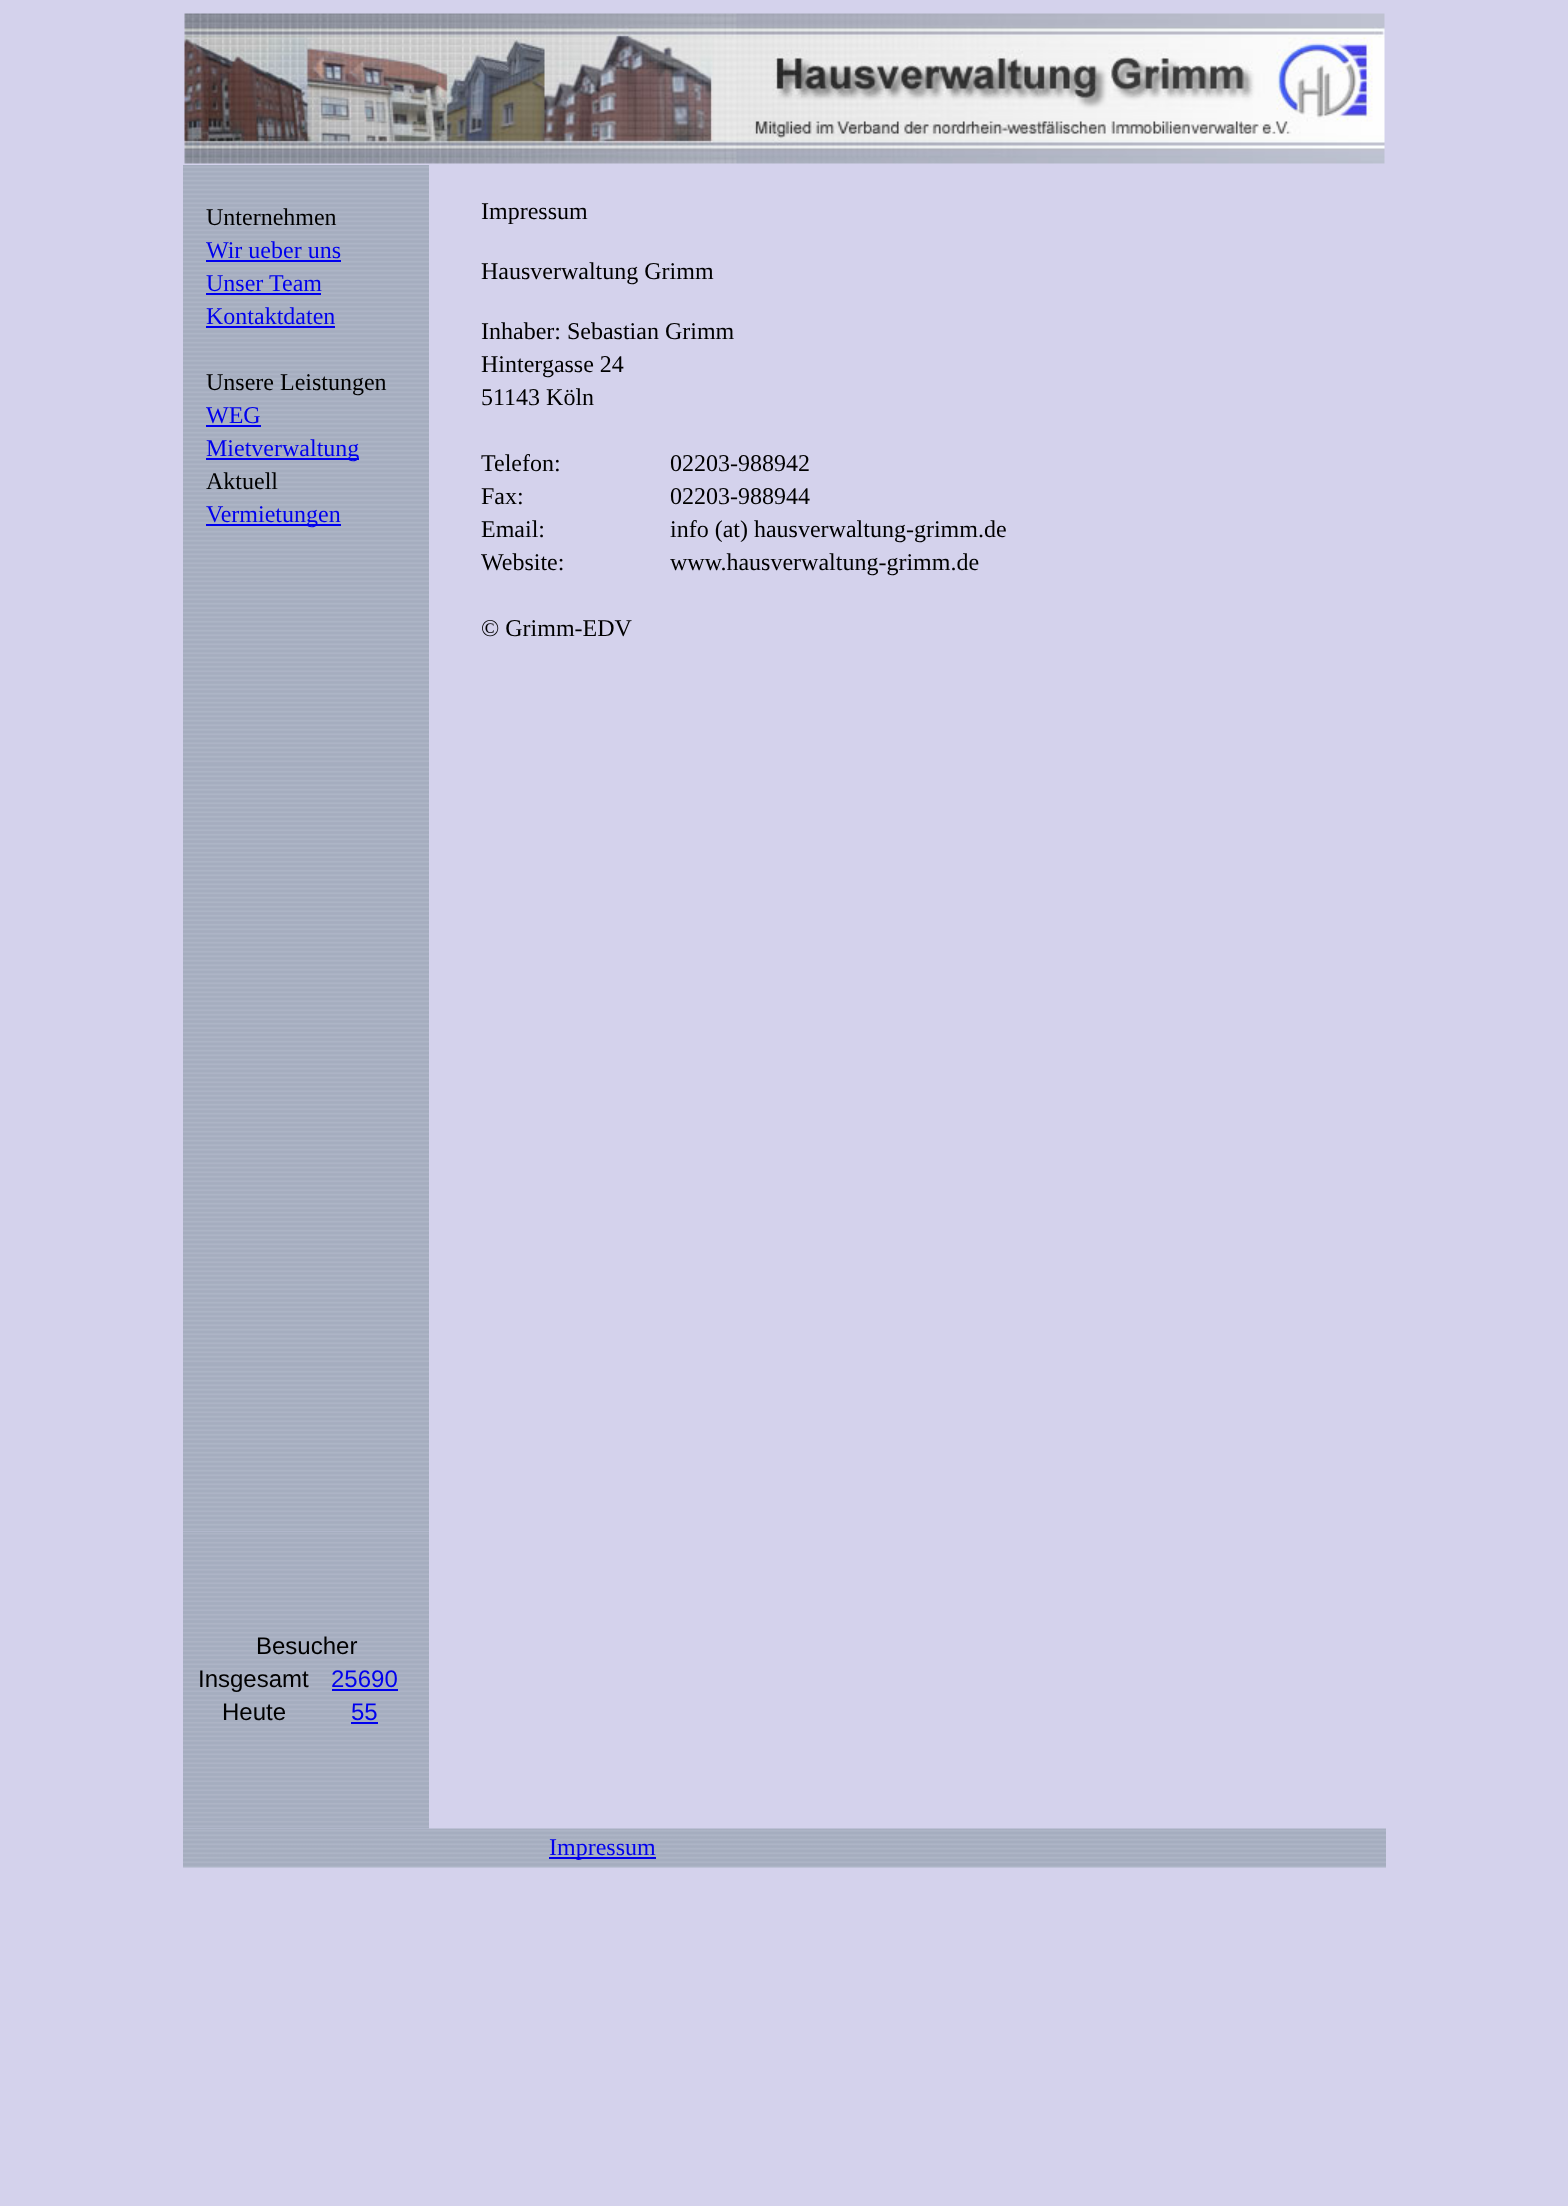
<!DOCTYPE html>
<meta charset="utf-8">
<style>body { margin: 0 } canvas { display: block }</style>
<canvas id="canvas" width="1568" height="2206"></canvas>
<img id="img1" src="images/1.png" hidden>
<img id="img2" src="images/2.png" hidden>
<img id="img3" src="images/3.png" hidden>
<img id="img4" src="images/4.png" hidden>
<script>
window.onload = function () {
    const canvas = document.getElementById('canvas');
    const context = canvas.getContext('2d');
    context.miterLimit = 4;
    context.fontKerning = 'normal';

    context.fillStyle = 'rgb(212, 210, 236)';
    context.fillRect(0, 0, 1568, 2206);
    context.drawImage(document.getElementById('img1'), 184, 13, 1201, 151);
    context.drawImage(document.getElementById('img2'), 183, 165, 246, 1367);
    context.fillStyle = 'rgb(0, 0, 238)';
    context.fillRect(206, 260, 135, 2);
    context.fillRect(206, 293, 115, 2);
    context.fillRect(206, 326, 129, 2);
    context.fillRect(206, 425, 55, 2);
    context.fillRect(206, 458, 153, 2);
    context.fillRect(206, 524, 135, 2);
    context.drawImage(document.getElementById('img3'), 183, 1531, 246, 298);
    context.fillRect(332, 1689, 66, 2);
    context.fillRect(351, 1722, 27, 2);
    context.drawImage(document.getElementById('img4'), 183, 1828, 1203, 40);
    context.fillRect(549, 1857, 107, 2);
    context.font = '24px Liberation Serif';
    context.fillStyle = 'rgb(0, 0, 0)';
    context.fillText('Unternehmen', 206, 225);
    context.fillStyle = 'rgb(0, 0, 238)';
    context.fillText('Wir ueber uns', 206, 258);
    context.fillText('Unser', 206, 291);
    context.fillText('Team', 269, 291);
    context.fillText('Kontaktdaten', 206, 324);
    context.fillStyle = 'rgb(0, 0, 0)';
    context.fillText('Unsere Leistungen', 206, 390);
    context.fillStyle = 'rgb(0, 0, 238)';
    context.fillText('WEG', 206, 423);
    context.fillText('Mietverwaltung', 206, 456);
    context.fillStyle = 'rgb(0, 0, 0)';
    context.fillText('Aktuell', 206, 489);
    context.fillStyle = 'rgb(0, 0, 238)';
    context.fillText('Vermietungen', 206, 522);
    context.fillStyle = 'rgb(0, 0, 0)';
    context.fillText('Impressum', 481, 219);
    context.fillText('Hausverwaltung Grimm', 481, 279);
    context.fillText('Inhaber: Sebastian Grimm', 481, 339);
    context.fillText('Hintergasse 24', 481, 372);
    context.fillText('51143 Köln', 481, 405);
    context.fillText('Telefon:', 481, 471);
    context.fillText('02203-988942', 670, 471);
    context.fillText('Fax:', 481, 504);
    context.fillText('02203-988944', 670, 504);
    context.fillText('Email:', 481, 537);
    context.fillText('info (at) hausverwaltung-grimm.de', 670, 537);
    context.fillText('Website:', 481, 570);
    context.fillText('www.hausverwaltung-grimm.de', 670, 570);
    context.fillText('© Grimm-EDV', 481, 636);
    context.font = '24px Liberation Sans';
    context.fillText('Besucher', 256, 1654);
    context.fillText('Insgesamt', 198, 1687);
    context.fillStyle = 'rgb(0, 0, 238)';
    context.fillText('25690', 331, 1687);
    context.fillStyle = 'rgb(0, 0, 0)';
    context.fillText('Heute', 222, 1720);
    context.fillStyle = 'rgb(0, 0, 238)';
    context.fillText('55', 351, 1720);
    context.font = '24px Liberation Serif';
    context.fillText('Impressum', 549, 1855);
};
</script>
